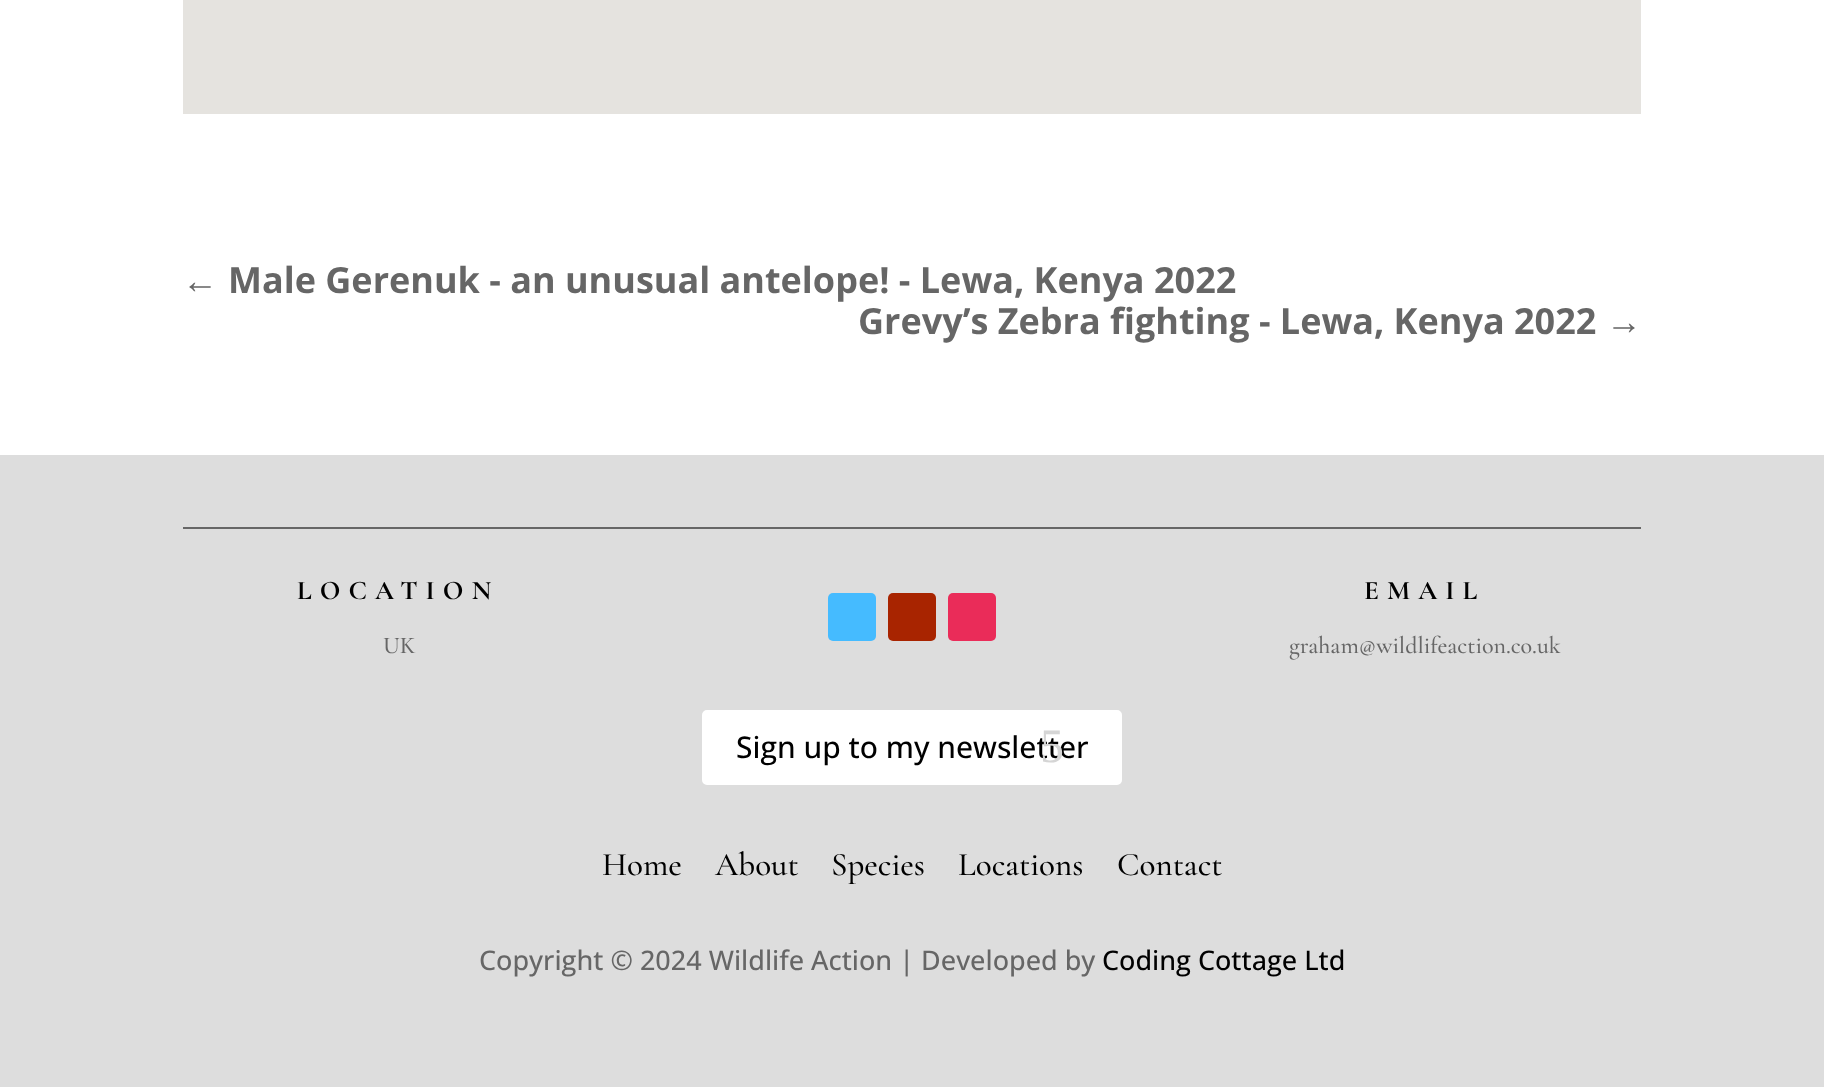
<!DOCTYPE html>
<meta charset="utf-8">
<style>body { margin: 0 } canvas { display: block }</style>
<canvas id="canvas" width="1824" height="1087"></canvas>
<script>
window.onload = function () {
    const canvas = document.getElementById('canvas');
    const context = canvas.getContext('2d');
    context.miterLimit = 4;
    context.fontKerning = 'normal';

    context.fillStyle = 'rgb(255, 255, 255)';
    context.fillRect(0, 0, 1824, 1087);
    context.fillStyle = 'rgb(229, 227, 223)';
    context.fillRect(183, 0, 1458, 114);
    context.fillStyle = 'rgb(221, 221, 221)';
    context.fillRect(0, 455, 1824, 632);
    context.fillStyle = 'rgb(102, 102, 102)';
    context.fillRect(183, 527, 1458, 2);
    context.fillStyle = 'rgb(69, 187, 255)';
    context.beginPath();
    context.roundRect(828, 593, 48, 48, 5);
    context.fill();
    context.fillStyle = 'rgb(168, 36, 0)';
    context.beginPath();
    context.roundRect(888, 593, 48, 48, 5);
    context.fill();
    context.fillStyle = 'rgb(234, 44, 89)';
    context.beginPath();
    context.roundRect(948, 593, 48, 48, 5);
    context.fill();
    context.fillStyle = 'rgb(255, 255, 255)';
    context.beginPath();
    context.roundRect(703.5, 711.5, 417, 72, 3.5);
    context.fill();
    context.strokeStyle = 'rgb(255, 255, 255)';
    context.lineWidth = 3;
    context.stroke();
    context.font = 'bold 36px Liberation Sans';
    context.fillStyle = 'rgb(102, 102, 102)';
    context.fillText('←', 182, 293);
    context.font = 'bold 36px Open Sans';
    context.fillText('Male Gerenuk - an unusual antelope! - Lewa, Kenya 2022', 228, 293);
    context.fillText('Grevy’s Zebra fighting - Lewa, Kenya 2022', 858, 334);
    context.font = 'bold 36px Liberation Sans';
    context.fillText('→', 1606, 334);
    context.letterSpacing = '8px';
    context.font = 'bold 27px Cormorant Garamond';
    context.fillStyle = 'rgb(0, 0, 0)';
    context.fillText('LOCATION', 297, 599);
    context.letterSpacing = '0px';
    context.font = '500 24px Cormorant Garamond';
    context.fillStyle = 'rgb(102, 102, 102)';
    context.fillText('UK', 383, 653);
    context.letterSpacing = '8px';
    context.font = 'bold 27px Cormorant Garamond';
    context.fillStyle = 'rgb(0, 0, 0)';
    context.fillText('EMAIL', 1364, 599);
    context.letterSpacing = '0px';
    context.font = '500 24px Cormorant Garamond';
    context.fillStyle = 'rgb(102, 102, 102)';
    context.fillText('graham@wildlifeaction.co.uk', 1289, 653);
    context.font = '500 30px Open Sans';
    context.fillStyle = 'rgb(0, 0, 0)';
    context.fillText('Sign up to my newsletter', 736, 758);
    context.font = '48px Liberation Serif';
    context.fillStyle = 'rgb(213, 213, 213)';
    context.fillText('5', 1040, 762);
    context.font = '500 33px Cormorant Garamond';
    context.fillStyle = 'rgb(0, 0, 0)';
    context.fillText('Home', 602, 875);
    context.fillText('About', 715, 875);
    context.fillText('Species', 831, 875);
    context.fillText('Locations', 958, 875);
    context.fillText('Contact', 1117, 875);
    context.font = '500 27px Open Sans';
    context.fillStyle = 'rgb(102, 102, 102)';
    context.fillText('Copyright © 2024 Wildlife Action | Developed by', 479, 970);
    context.fillStyle = 'rgb(0, 0, 0)';
    context.fillText('Coding Cottage Ltd', 1102, 970);
};
</script>
